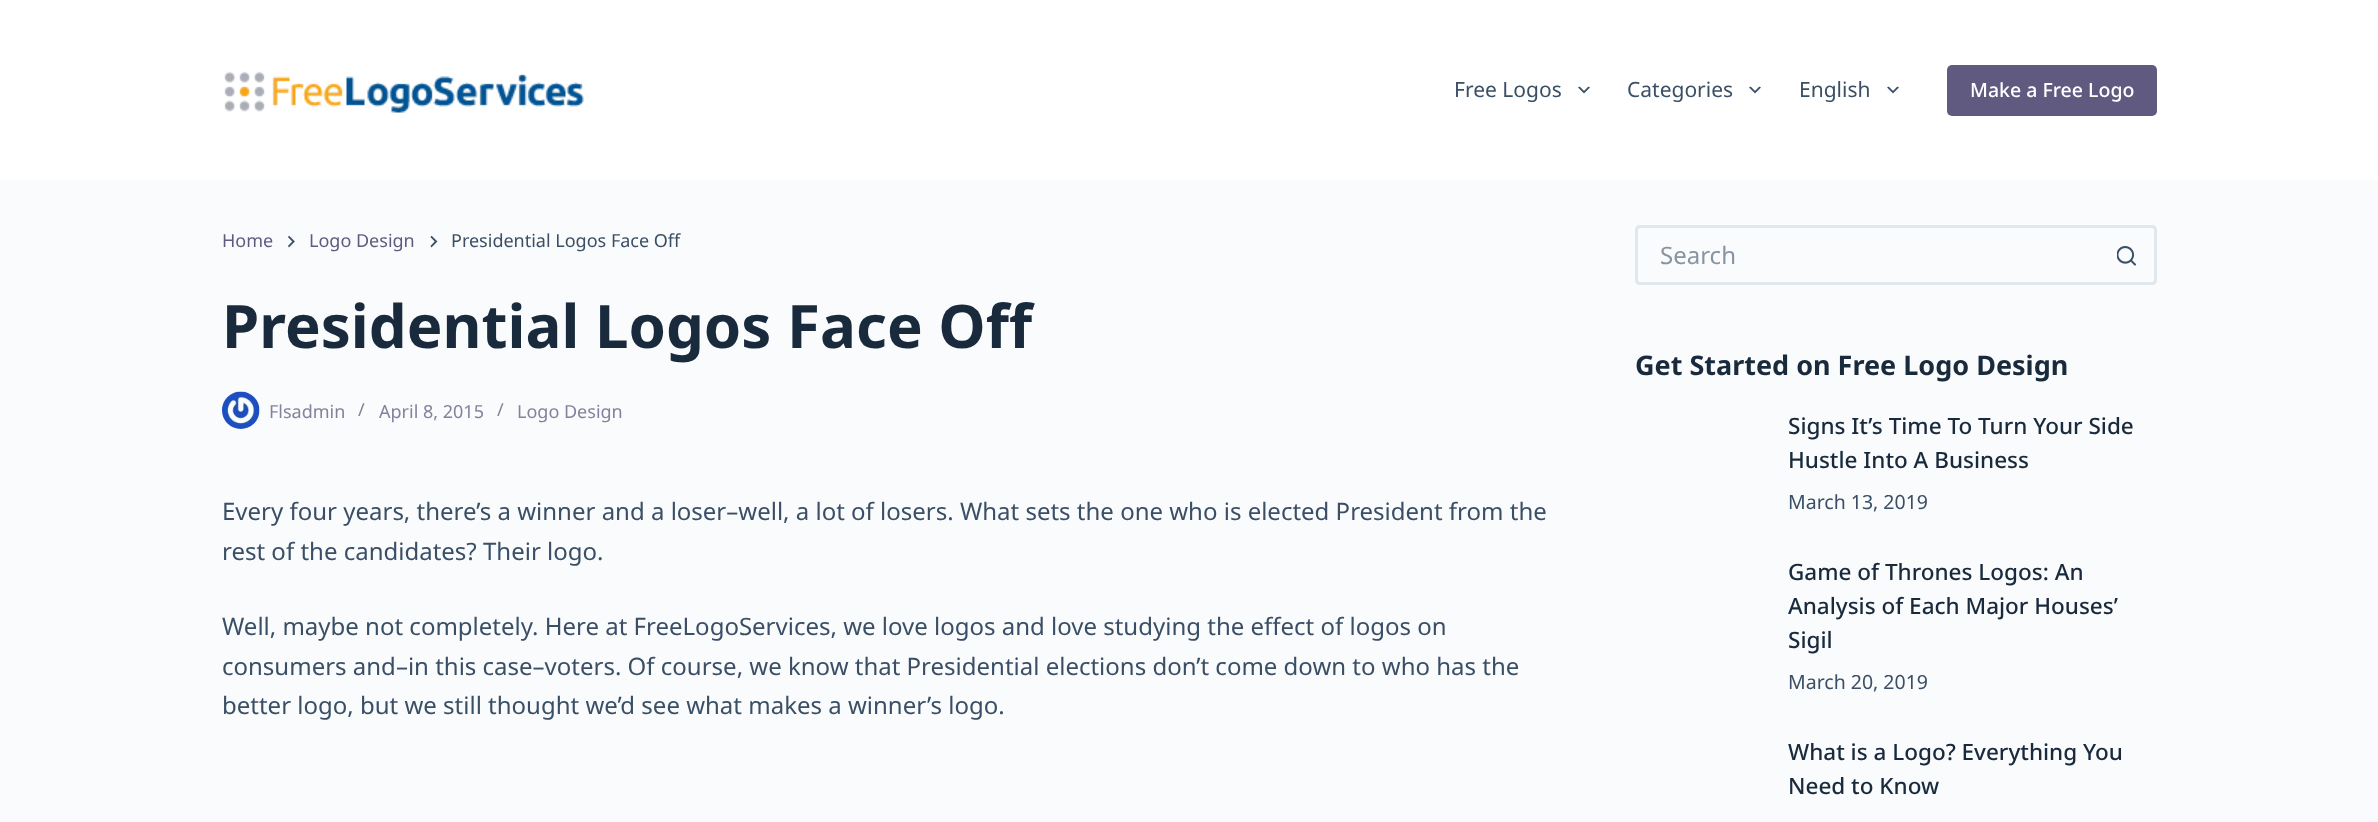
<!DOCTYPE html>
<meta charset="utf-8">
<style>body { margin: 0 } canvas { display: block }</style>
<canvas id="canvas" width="2378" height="822"></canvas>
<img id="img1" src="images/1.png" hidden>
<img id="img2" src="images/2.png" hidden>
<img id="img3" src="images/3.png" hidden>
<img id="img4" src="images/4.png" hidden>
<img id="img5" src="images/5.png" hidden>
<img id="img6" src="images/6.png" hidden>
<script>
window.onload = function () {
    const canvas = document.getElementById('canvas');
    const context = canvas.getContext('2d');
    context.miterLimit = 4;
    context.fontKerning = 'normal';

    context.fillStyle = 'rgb(250, 251, 252)';
    context.fillRect(0, 0, 2378, 822);
    context.fillStyle = 'rgb(255, 255, 255)';
    context.fillRect(0, 0, 2378, 180);
    context.drawImage(document.getElementById('img1'), 224, 71, 360, 42);
    context.drawImage(document.getElementById('img2'), 1578, 86, 12, 8);
    context.drawImage(document.getElementById('img2'), 1749, 86, 12, 8);
    context.drawImage(document.getElementById('img2'), 1887, 86, 12, 8);
    context.fillStyle = 'rgb(97, 90, 128)';
    context.beginPath();
    context.roundRect(1947, 65, 210, 51, 5);
    context.fill();
    context.drawImage(document.getElementById('img3'), 288, 236, 7, 12);
    context.drawImage(document.getElementById('img4'), 430, 236, 8, 12);
    context.drawImage(document.getElementById('img5'), 222, 391, 38, 38);
    context.fillStyle = 'rgb(225, 232, 237)';
    context.beginPath();
    context.moveTo(1640, 225);
    context.lineTo(2097, 225);
    context.lineTo(2097, 285);
    context.lineTo(1640, 285);
    context.bezierCurveTo(1637, 285, 1635, 283, 1635, 280);
    context.lineTo(1635, 230);
    context.bezierCurveTo(1635, 227, 1637, 225, 1640, 225);
    context.closePath();
    context.moveTo(1640, 228);
    context.lineTo(2097, 228);
    context.lineTo(2097, 282);
    context.lineTo(1639, 282);
    context.lineTo(1638, 280);
    context.lineTo(1638, 229);
    context.closePath();
    context.fill('evenodd');
    context.beginPath();
    context.moveTo(2097, 225);
    context.lineTo(2152, 225);
    context.bezierCurveTo(2155, 225, 2157, 227, 2157, 230);
    context.lineTo(2157, 280);
    context.bezierCurveTo(2157, 283, 2155, 285, 2152, 285);
    context.lineTo(2097, 285);
    context.closePath();
    context.moveTo(2097, 228);
    context.lineTo(2152, 228);
    context.bezierCurveTo(2153, 228, 2154, 229, 2154, 230);
    context.lineTo(2154, 280);
    context.bezierCurveTo(2154, 281, 2153, 282, 2152, 282);
    context.lineTo(2097, 282);
    context.closePath();
    context.fill('evenodd');
    context.drawImage(document.getElementById('img6'), 2117, 246, 19, 20);
    context.font = '21px Noto Sans';
    context.fillStyle = 'rgb(58, 79, 102)';
    context.fillText('Free Logos', 1454, 97);
    context.fillText('Categories', 1627, 97);
    context.fillText('English', 1799, 97);
    context.font = '500 19.5px Noto Sans';
    context.fillStyle = 'rgb(255, 255, 255)';
    context.fillText('Make a Free Logo', 1970, 97);
    context.font = '18px Noto Sans';
    context.fillStyle = 'rgb(97, 90, 128)';
    context.fillText('Home', 222, 247);
    context.fillText('Logo Design', 309, 247);
    context.fillStyle = 'rgb(58, 79, 102)';
    context.fillText('Presidential Logos Face Off', 451, 247);
    context.font = 'bold 60px Noto Sans';
    context.fillStyle = 'rgb(25, 42, 61)';
    context.fillText('Presidential Logos Face Off', 222, 348);
    context.font = '18px Noto Sans';
    context.fillStyle = 'rgb(133, 128, 157)';
    context.fillText('Flsadmin', 269, 418);
    context.fillText('/', 358, 416);
    context.fillText('April 8, 2015', 379, 418);
    context.fillText('/', 497, 416);
    context.fillText('Logo Design', 517, 418);
    context.font = '24px Noto Sans';
    context.fillStyle = 'rgb(58, 79, 102)';
    context.fillText('Every four years, there’s a winner and a loser–well, a lot of losers. What sets the one who is elected President from the', 222, 520);
    context.fillText('rest of the candidates? Their logo.', 222, 560);
    context.fillText('Well, maybe not completely. Here at FreeLogoServices, we love logos and love studying the effect of logos on', 222, 635);
    context.fillText('consumers and–in this case–voters. Of course, we know that Presidential elections don’t come down to who has the', 222, 675);
    context.fillText('better logo, but we still thought we’d see what makes a winner’s logo.', 222, 714);
    context.fillStyle = 'rgb(135, 148, 162)';
    context.fillText('Search', 1660, 264);
    context.font = 'bold 27px Noto Sans';
    context.fillStyle = 'rgb(25, 42, 61)';
    context.fillText('Get Started on Free Logo Design', 1635, 375);
    context.font = '500 22.5px Noto Sans';
    context.fillText('Signs It’s Time To Turn Your Side', 1788, 434);
    context.fillText('Hustle Into A Business', 1788, 468);
    context.font = '19.5px Noto Sans';
    context.fillStyle = 'rgb(58, 79, 102)';
    context.fillText('March 13, 2019', 1788, 509);
    context.font = '500 22.5px Noto Sans';
    context.fillStyle = 'rgb(25, 42, 61)';
    context.fillText('Game of Thrones Logos: An', 1788, 580);
    context.fillText('Analysis of Each Major Houses’', 1788, 614);
    context.fillText('Sigil', 1788, 648);
    context.font = '19.5px Noto Sans';
    context.fillStyle = 'rgb(58, 79, 102)';
    context.fillText('March 20, 2019', 1788, 689);
    context.font = '500 22.5px Noto Sans';
    context.fillStyle = 'rgb(25, 42, 61)';
    context.fillText('What is a Logo? Everything You', 1788, 760);
    context.fillText('Need to Know', 1788, 794);
};
</script>
